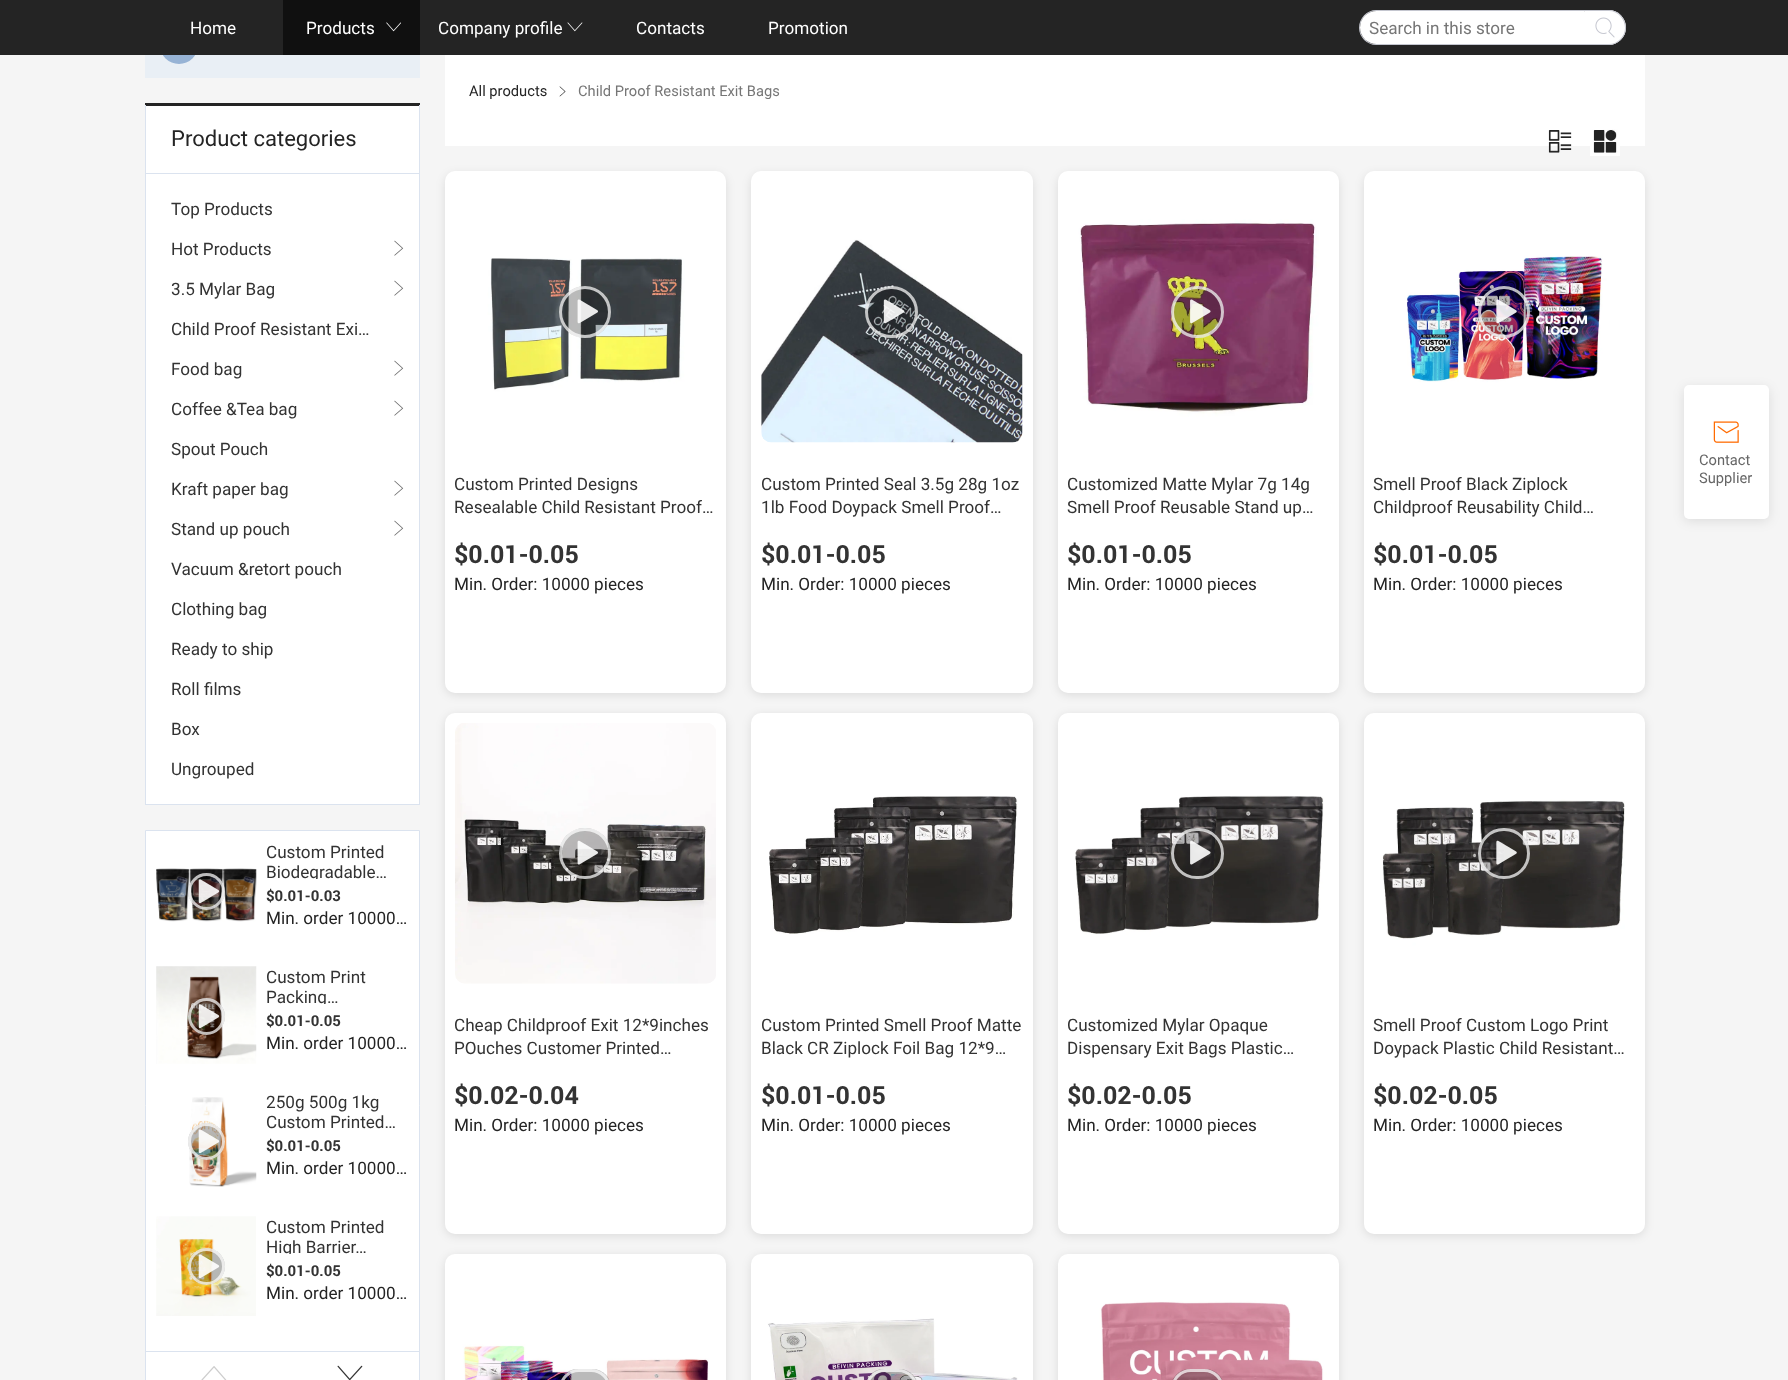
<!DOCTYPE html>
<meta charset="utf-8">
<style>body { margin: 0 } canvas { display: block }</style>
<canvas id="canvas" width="1788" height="1380"></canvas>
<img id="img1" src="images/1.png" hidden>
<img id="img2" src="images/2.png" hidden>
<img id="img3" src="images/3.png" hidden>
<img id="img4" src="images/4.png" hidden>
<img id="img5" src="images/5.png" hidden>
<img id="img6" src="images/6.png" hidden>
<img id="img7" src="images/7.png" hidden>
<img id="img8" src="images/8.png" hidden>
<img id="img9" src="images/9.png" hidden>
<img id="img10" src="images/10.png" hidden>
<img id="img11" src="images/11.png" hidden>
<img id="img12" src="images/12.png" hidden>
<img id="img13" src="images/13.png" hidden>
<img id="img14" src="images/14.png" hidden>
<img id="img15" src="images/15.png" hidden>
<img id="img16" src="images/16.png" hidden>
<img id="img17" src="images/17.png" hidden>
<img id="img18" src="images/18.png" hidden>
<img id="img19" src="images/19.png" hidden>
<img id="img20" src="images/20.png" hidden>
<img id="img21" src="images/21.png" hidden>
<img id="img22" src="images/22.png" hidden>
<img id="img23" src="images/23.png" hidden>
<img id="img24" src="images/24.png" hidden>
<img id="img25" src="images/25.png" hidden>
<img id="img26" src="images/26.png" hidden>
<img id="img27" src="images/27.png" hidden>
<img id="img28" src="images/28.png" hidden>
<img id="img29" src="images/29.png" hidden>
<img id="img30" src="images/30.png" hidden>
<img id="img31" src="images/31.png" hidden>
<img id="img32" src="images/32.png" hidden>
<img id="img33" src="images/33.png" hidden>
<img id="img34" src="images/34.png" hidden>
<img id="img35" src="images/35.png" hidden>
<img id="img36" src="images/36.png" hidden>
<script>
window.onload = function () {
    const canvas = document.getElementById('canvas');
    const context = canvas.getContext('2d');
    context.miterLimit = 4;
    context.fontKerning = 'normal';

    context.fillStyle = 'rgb(245, 245, 245)';
    context.fillRect(0, 0, 1788, 1380);
    context.fillStyle = 'rgb(233, 239, 245)';
    context.fillRect(145, 55, 275, 23);
    context.fillStyle = 'rgb(151, 179, 213)';
    context.beginPath();
    context.arc(179, 45, 19, 0, 2 * Math.PI);
    context.fill();
    context.fillStyle = 'rgb(36, 36, 36)';
    context.fillRect(0, 0, 1788, 55);
    context.fillStyle = 'rgb(16, 16, 16)';
    context.fillRect(283, 0, 137, 55);
    context.drawImage(document.getElementById('img1'), 386, 22, 15, 10);
    context.drawImage(document.getElementById('img2'), 567, 22, 16, 10);
    context.fillStyle = 'rgb(196, 198, 207)';
    context.beginPath();
    context.moveTo(1376, 10);
    context.lineTo(1585, 10);
    context.lineTo(1585, 45);
    context.lineTo(1376, 45);
    context.bezierCurveTo(1367, 45, 1359, 37, 1359, 28);
    context.bezierCurveTo(1359, 18, 1367, 10, 1376, 10);
    context.closePath();
    context.moveTo(1376, 11);
    context.lineTo(1585, 11);
    context.lineTo(1585, 44);
    context.lineTo(1376, 44);
    context.bezierCurveTo(1367, 44, 1360, 36, 1360, 28);
    context.bezierCurveTo(1360, 19, 1367, 11, 1376, 11);
    context.closePath();
    context.fill('evenodd');
    context.fillStyle = 'rgb(255, 255, 255)';
    context.beginPath();
    context.roundRect(1360, 11, 225, 33, [16.5, 0.5, 0.5, 16.5]);
    context.fill();
    context.beginPath();
    context.roundRect(1585, 10, 41, 35, [0, 17.5, 17.5, 0]);
    context.fill();
    context.fillStyle = 'rgb(196, 198, 207)';
    context.beginPath();
    context.moveTo(1585, 10);
    context.lineTo(1609, 10);
    context.bezierCurveTo(1618, 10, 1626, 18, 1626, 28);
    context.bezierCurveTo(1626, 37, 1618, 45, 1609, 45);
    context.lineTo(1585, 45);
    context.closePath();
    context.moveTo(1585, 11);
    context.lineTo(1609, 11);
    context.bezierCurveTo(1618, 11, 1625, 19, 1625, 28);
    context.bezierCurveTo(1625, 36, 1618, 44, 1609, 44);
    context.lineTo(1585, 44);
    context.closePath();
    context.fill('evenodd');
    context.drawImage(document.getElementById('img3'), 1595, 17, 20, 21);
    context.fillStyle = 'rgb(255, 255, 255)';
    context.fillRect(146, 106, 273, 698);
    context.fillStyle = 'rgb(36, 36, 36)';
    context.fillRect(145, 103, 275, 3);
    context.fillStyle = 'rgb(219, 227, 239)';
    context.fillRect(419, 105, 1, 700);
    context.fillRect(145, 804, 275, 1);
    context.fillRect(145, 105, 1, 700);
    context.fillRect(146, 173, 273, 1);
    context.drawImage(document.getElementById('img4'), 394, 240, 10, 16);
    context.drawImage(document.getElementById('img4'), 394, 280, 10, 16);
    context.drawImage(document.getElementById('img4'), 394, 360, 10, 16);
    context.drawImage(document.getElementById('img4'), 394, 400, 10, 16);
    context.drawImage(document.getElementById('img4'), 394, 480, 10, 16);
    context.drawImage(document.getElementById('img4'), 394, 520, 10, 16);
    context.fillStyle = 'rgb(255, 255, 255)';
    context.beginPath();
    context.rect(145.5, 830.5, 274, 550);
    context.fill();
    context.strokeStyle = 'rgb(219, 227, 239)';
    context.stroke();
    context.drawImage(document.getElementById('img5'), 156, 868, 101, 54);
    context.fillStyle = 'rgba(0, 0, 0, 0.27)';
    context.beginPath();
    context.arc(206.5, 891.5, 18.5, 0, 2 * Math.PI);
    context.fill();
    context.beginPath();
    context.arc(206.5, 891.5, 17, 0, 2 * Math.PI);
    context.strokeStyle = 'rgba(255, 255, 255, 0.72)';
    context.lineWidth = 3;
    context.stroke();
    context.drawImage(document.getElementById('img6'), 198, 879, 22, 25);
    context.drawImage(document.getElementById('img7'), 156, 966, 101, 98);
    context.beginPath();
    context.arc(206.5, 1016.5, 18.5, 0, 2 * Math.PI);
    context.fill();
    context.beginPath();
    context.arc(206.5, 1016.5, 17, 0, 2 * Math.PI);
    context.stroke();
    context.drawImage(document.getElementById('img8'), 198, 1004, 22, 25);
    context.drawImage(document.getElementById('img9'), 189, 1097, 68, 90);
    context.beginPath();
    context.arc(206.5, 1141.5, 18.5, 0, 2 * Math.PI);
    context.fill();
    context.beginPath();
    context.arc(206.5, 1141.5, 17, 0, 2 * Math.PI);
    context.stroke();
    context.drawImage(document.getElementById('img10'), 198, 1129, 22, 25);
    context.drawImage(document.getElementById('img11'), 156, 1216, 100, 100);
    context.beginPath();
    context.arc(206.5, 1266.5, 18.5, 0, 2 * Math.PI);
    context.fill();
    context.beginPath();
    context.arc(206.5, 1266.5, 17, 0, 2 * Math.PI);
    context.stroke();
    context.drawImage(document.getElementById('img12'), 198, 1254, 22, 25);
    context.fillStyle = 'rgb(219, 227, 239)';
    context.fillRect(146, 1351, 273, 1);
    context.drawImage(document.getElementById('img13'), 201, 1366, 26, 14);
    context.drawImage(document.getElementById('img14'), 337, 1365, 26, 15);
    context.fillStyle = 'rgb(255, 255, 255)';
    context.fillRect(445, 55, 1200, 91);
    context.drawImage(document.getElementById('img15'), 559, 86, 7, 11);
    context.drawImage(document.getElementById('img16'), 1548, 130, 24, 23);
    context.drawImage(document.getElementById('img17'), 1590, 129, 30, 27);
    context.fillStyle = 'rgba(0, 0, 0, 0.1)';
    context.filter = 'blur(5px)';
    context.beginPath();
    context.roundRect(445, 174, 281, 521, 10);
    context.fill();
    context.filter = 'none';
    context.fillStyle = 'rgb(255, 255, 255)';
    context.beginPath();
    context.roundRect(445, 171, 281, 522, 10);
    context.fill();
    context.drawImage(document.getElementById('img18'), 455, 182, 261, 258);
    context.fillStyle = 'rgba(0, 0, 0, 0.27)';
    context.beginPath();
    context.arc(585, 312, 26, 0, 2 * Math.PI);
    context.fill();
    context.beginPath();
    context.arc(585, 312, 24.5, 0, 2 * Math.PI);
    context.stroke();
    context.drawImage(document.getElementById('img19'), 577, 299, 21, 25);
    context.fillStyle = 'rgba(0, 0, 0, 0.1)';
    context.filter = 'blur(5px)';
    context.beginPath();
    context.roundRect(751, 174, 282, 521, 10);
    context.fill();
    context.filter = 'none';
    context.fillStyle = 'rgb(255, 255, 255)';
    context.beginPath();
    context.roundRect(751, 171, 282, 522, 10);
    context.fill();
    context.drawImage(document.getElementById('img20'), 761, 184, 262, 259);
    context.fillStyle = 'rgba(0, 0, 0, 0.27)';
    context.beginPath();
    context.roundRect(865, 286, 53, 52, 26);
    context.fill();
    context.beginPath();
    context.roundRect(866.5, 287.5, 50, 49, 24.5);
    context.stroke();
    context.drawImage(document.getElementById('img21'), 883, 299, 22, 25);
    context.fillStyle = 'rgba(0, 0, 0, 0.1)';
    context.filter = 'blur(5px)';
    context.beginPath();
    context.roundRect(1058, 174, 281, 521, 10);
    context.fill();
    context.filter = 'none';
    context.fillStyle = 'rgb(255, 255, 255)';
    context.beginPath();
    context.roundRect(1058, 171, 281, 522, 10);
    context.fill();
    context.drawImage(document.getElementById('img22'), 1068, 182, 259, 260);
    context.fillStyle = 'rgba(0, 0, 0, 0.27)';
    context.beginPath();
    context.roundRect(1171, 286, 53, 52, 26);
    context.fill();
    context.beginPath();
    context.roundRect(1172.5, 287.5, 50, 49, 24.5);
    context.stroke();
    context.drawImage(document.getElementById('img23'), 1190, 299, 21, 25);
    context.fillStyle = 'rgba(0, 0, 0, 0.1)';
    context.filter = 'blur(5px)';
    context.beginPath();
    context.roundRect(1364, 174, 281, 521, 10);
    context.fill();
    context.filter = 'none';
    context.fillStyle = 'rgb(255, 255, 255)';
    context.beginPath();
    context.roundRect(1364, 171, 281, 522, 10);
    context.fill();
    context.drawImage(document.getElementById('img24'), 1374, 182, 261, 258);
    context.fillStyle = 'rgba(0, 0, 0, 0.27)';
    context.beginPath();
    context.arc(1504, 312, 26, 0, 2 * Math.PI);
    context.fill();
    context.beginPath();
    context.arc(1504, 312, 24.5, 0, 2 * Math.PI);
    context.stroke();
    context.drawImage(document.getElementById('img25'), 1496, 299, 21, 25);
    context.fillStyle = 'rgba(0, 0, 0, 0.1)';
    context.filter = 'blur(5px)';
    context.beginPath();
    context.roundRect(445, 715, 281, 521, 10);
    context.fill();
    context.filter = 'none';
    context.fillStyle = 'rgb(255, 255, 255)';
    context.beginPath();
    context.roundRect(445, 713, 281, 521, 10);
    context.fill();
    context.drawImage(document.getElementById('img26'), 455, 723, 261, 261);
    context.fillStyle = 'rgba(0, 0, 0, 0.27)';
    context.beginPath();
    context.roundRect(559, 828, 52, 51, 25.5);
    context.fill();
    context.beginPath();
    context.roundRect(560.5, 829.5, 49, 48, 24);
    context.stroke();
    context.drawImage(document.getElementById('img27'), 577, 840, 21, 25);
    context.fillStyle = 'rgba(0, 0, 0, 0.1)';
    context.filter = 'blur(5px)';
    context.beginPath();
    context.roundRect(751, 715, 282, 521, 10);
    context.fill();
    context.filter = 'none';
    context.fillStyle = 'rgb(255, 255, 255)';
    context.beginPath();
    context.roundRect(751, 713, 282, 521, 10);
    context.fill();
    context.drawImage(document.getElementById('img28'), 769, 796, 249, 138);
    context.fillStyle = 'rgba(0, 0, 0, 0.1)';
    context.filter = 'blur(5px)';
    context.beginPath();
    context.roundRect(1058, 715, 281, 521, 10);
    context.fill();
    context.filter = 'none';
    context.fillStyle = 'rgb(255, 255, 255)';
    context.beginPath();
    context.roundRect(1058, 713, 281, 521, 10);
    context.fill();
    context.drawImage(document.getElementById('img29'), 1068, 723, 261, 260);
    context.fillStyle = 'rgba(0, 0, 0, 0.27)';
    context.beginPath();
    context.roundRect(1171, 828, 53, 51, 25.5);
    context.fill();
    context.beginPath();
    context.roundRect(1172.5, 829.5, 50, 48, 24);
    context.stroke();
    context.drawImage(document.getElementById('img30'), 1190, 840, 21, 25);
    context.fillStyle = 'rgba(0, 0, 0, 0.1)';
    context.filter = 'blur(5px)';
    context.beginPath();
    context.roundRect(1364, 715, 281, 521, 10);
    context.fill();
    context.filter = 'none';
    context.fillStyle = 'rgb(255, 255, 255)';
    context.beginPath();
    context.roundRect(1364, 713, 281, 521, 10);
    context.fill();
    context.drawImage(document.getElementById('img31'), 1374, 723, 261, 260);
    context.fillStyle = 'rgba(0, 0, 0, 0.27)';
    context.beginPath();
    context.roundRect(1478, 828, 52, 51, 25.5);
    context.fill();
    context.beginPath();
    context.roundRect(1479.5, 829.5, 49, 48, 24);
    context.stroke();
    context.drawImage(document.getElementById('img32'), 1496, 840, 21, 25);
    context.fillStyle = 'rgba(0, 0, 0, 0.1)';
    context.filter = 'blur(5px)';
    context.beginPath();
    context.roundRect(445, 1256, 281, 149, 10);
    context.fill();
    context.filter = 'none';
    context.fillStyle = 'rgb(255, 255, 255)';
    context.beginPath();
    context.roundRect(445, 1254, 281, 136, 10);
    context.fill();
    context.drawImage(document.getElementById('img33'), 455, 1264, 261, 116);
    context.fillStyle = 'rgba(0, 0, 0, 0.27)';
    context.beginPath();
    context.roundRect(559, 1369, 52, 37, 25.5);
    context.fill();
    context.beginPath();
    context.roundRect(560.5, 1370.5, 49, 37, 24);
    context.stroke();
    context.fillStyle = 'rgba(0, 0, 0, 0.1)';
    context.filter = 'blur(5px)';
    context.beginPath();
    context.roundRect(751, 1256, 282, 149, 10);
    context.fill();
    context.filter = 'none';
    context.fillStyle = 'rgb(255, 255, 255)';
    context.beginPath();
    context.roundRect(751, 1254, 282, 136, 10);
    context.fill();
    context.drawImage(document.getElementById('img34'), 762, 1264, 258, 116);
    context.fillStyle = 'rgba(0, 0, 0, 0.27)';
    context.beginPath();
    context.roundRect(865, 1369, 53, 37, 25.5);
    context.fill();
    context.beginPath();
    context.roundRect(866.5, 1370.5, 50, 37, 24);
    context.stroke();
    context.fillStyle = 'rgba(0, 0, 0, 0.1)';
    context.filter = 'blur(5px)';
    context.beginPath();
    context.roundRect(1058, 1256, 281, 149, 10);
    context.fill();
    context.filter = 'none';
    context.fillStyle = 'rgb(255, 255, 255)';
    context.beginPath();
    context.roundRect(1058, 1254, 281, 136, 10);
    context.fill();
    context.drawImage(document.getElementById('img35'), 1068, 1264, 260, 116);
    context.fillStyle = 'rgba(0, 0, 0, 0.27)';
    context.beginPath();
    context.roundRect(1171, 1369, 53, 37, 25.5);
    context.fill();
    context.beginPath();
    context.roundRect(1172.5, 1370.5, 50, 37, 24);
    context.stroke();
    context.fillStyle = 'rgba(0, 0, 0, 0.1)';
    context.filter = 'blur(6px)';
    context.beginPath();
    context.roundRect(1684, 388, 85, 133, 5);
    context.fill();
    context.filter = 'none';
    context.fillStyle = 'rgb(255, 255, 255)';
    context.beginPath();
    context.roundRect(1684, 385, 85, 134, 5);
    context.fill();
    context.drawImage(document.getElementById('img36'), 1713, 421, 26, 22);
    context.font = '17.5px Roboto';
    context.fillText('Home', 190, 34);
    context.fillText('Products', 306, 34);
    context.fillText('Company profile', 438, 34);
    context.fillText('Contacts', 636, 34);
    context.fillText('Promotion', 768, 34);
    context.fillStyle = 'rgb(118, 118, 118)';
    context.fillText('Search in this store', 1369, 34);
    context.font = '22.5px Roboto';
    context.fillStyle = 'rgb(36, 36, 36)';
    context.fillText('Product categories', 171, 146);
    context.font = '17.5px Roboto';
    context.fillStyle = 'rgb(51, 51, 51)';
    context.fillText('Top Products', 171, 215);
    context.fillText('Hot Products', 171, 255);
    context.fillText('3.5 Mylar Bag', 171, 295);
    context.fillText('Child Proof Resistant Exi…', 171, 335);
    context.fillText('Food bag', 171, 375);
    context.fillText('Coffee &Tea bag', 171, 415);
    context.fillText('Spout Pouch', 171, 455);
    context.fillText('Kraft paper bag', 171, 495);
    context.fillText('Stand up pouch', 171, 535);
    context.fillText('Vacuum &retort pouch', 171, 575);
    context.fillText('Clothing bag', 171, 615);
    context.fillText('Ready to ship', 171, 655);
    context.fillText('Roll films', 171, 695);
    context.fillText('Box', 171, 735);
    context.fillText('Ungrouped', 171, 775);
    context.fillText('Custom Printed', 266, 858);
    context.save();
    context.beginPath();
    context.rect(266, 841, 143, 38);
    context.clip();
    context.fillText('Biodegradable…', 266, 878);
    context.restore();
    context.font = 'bold 15px Roboto';
    context.fillText('$0.01-0.03', 266, 901);
    context.font = '17.5px Roboto';
    context.fillStyle = 'rgb(36, 36, 36)';
    context.fillText('Min. order 10000…', 266, 924);
    context.fillStyle = 'rgb(51, 51, 51)';
    context.fillText('Custom Print', 266, 983);
    context.save();
    context.beginPath();
    context.rect(266, 966, 143, 38);
    context.clip();
    context.fillText('Packing…', 266, 1003);
    context.restore();
    context.font = 'bold 15px Roboto';
    context.fillText('$0.01-0.05', 266, 1026);
    context.font = '17.5px Roboto';
    context.fillStyle = 'rgb(36, 36, 36)';
    context.fillText('Min. order 10000…', 266, 1049);
    context.fillStyle = 'rgb(51, 51, 51)';
    context.fillText('250g 500g 1kg', 266, 1108);
    context.fillText('Custom Printed…', 266, 1128);
    context.font = 'bold 15px Roboto';
    context.fillText('$0.01-0.05', 266, 1151);
    context.font = '17.5px Roboto';
    context.fillStyle = 'rgb(36, 36, 36)';
    context.fillText('Min. order 10000…', 266, 1174);
    context.fillStyle = 'rgb(51, 51, 51)';
    context.fillText('Custom Printed', 266, 1233);
    context.save();
    context.beginPath();
    context.rect(266, 1216, 143, 38);
    context.clip();
    context.fillText('High Barrier…', 266, 1253);
    context.restore();
    context.font = 'bold 15px Roboto';
    context.fillText('$0.01-0.05', 266, 1276);
    context.font = '17.5px Roboto';
    context.fillStyle = 'rgb(36, 36, 36)';
    context.fillText('Min. order 10000…', 266, 1299);
    context.font = '15px Roboto';
    context.fillText('All products', 469, 96);
    context.fillStyle = 'rgb(118, 118, 118)';
    context.fillText('Child Proof Resistant Exit Bags', 578, 96);
    context.font = '17.5px Roboto';
    context.fillStyle = 'rgb(51, 51, 51)';
    context.fillText('Custom Printed Designs', 454, 490);
    context.fillText('Resealable Child Resistant Proof…', 454, 513);
    context.font = 'bold 25px Roboto';
    context.fillText('$0.01-0.05', 454, 563);
    context.font = '17.5px Roboto';
    context.fillStyle = 'rgb(36, 36, 36)';
    context.fillText('Min. Order: 10000 pieces', 454, 590);
    context.fillStyle = 'rgb(51, 51, 51)';
    context.fillText('Custom Printed Seal 3.5g 28g 1oz', 761, 490);
    context.fillText('1lb Food Doypack Smell Proof…', 761, 513);
    context.font = 'bold 25px Roboto';
    context.fillText('$0.01-0.05', 761, 563);
    context.font = '17.5px Roboto';
    context.fillStyle = 'rgb(36, 36, 36)';
    context.fillText('Min. Order: 10000 pieces', 761, 590);
    context.fillStyle = 'rgb(51, 51, 51)';
    context.fillText('Customized Matte Mylar 7g 14g', 1067, 490);
    context.fillText('Smell Proof Reusable Stand up…', 1067, 513);
    context.font = 'bold 25px Roboto';
    context.fillText('$0.01-0.05', 1067, 563);
    context.font = '17.5px Roboto';
    context.fillStyle = 'rgb(36, 36, 36)';
    context.fillText('Min. Order: 10000 pieces', 1067, 590);
    context.fillStyle = 'rgb(51, 51, 51)';
    context.fillText('Smell Proof Black Ziplock', 1373, 490);
    context.fillText('Childproof Reusability Child…', 1373, 513);
    context.font = 'bold 25px Roboto';
    context.fillText('$0.01-0.05', 1373, 563);
    context.font = '17.5px Roboto';
    context.fillStyle = 'rgb(36, 36, 36)';
    context.fillText('Min. Order: 10000 pieces', 1373, 590);
    context.fillStyle = 'rgb(51, 51, 51)';
    context.fillText('Cheap Childproof Exit 12*9inches', 454, 1031);
    context.fillText('POuches Customer Printed…', 454, 1054);
    context.font = 'bold 25px Roboto';
    context.fillText('$0.02-0.04', 454, 1104);
    context.font = '17.5px Roboto';
    context.fillStyle = 'rgb(36, 36, 36)';
    context.fillText('Min. Order: 10000 pieces', 454, 1131);
    context.fillStyle = 'rgb(51, 51, 51)';
    context.fillText('Custom Printed Smell Proof Matte', 761, 1031);
    context.fillText('Black CR Ziplock Foil Bag 12*9…', 761, 1054);
    context.font = 'bold 25px Roboto';
    context.fillText('$0.01-0.05', 761, 1104);
    context.font = '17.5px Roboto';
    context.fillStyle = 'rgb(36, 36, 36)';
    context.fillText('Min. Order: 10000 pieces', 761, 1131);
    context.fillStyle = 'rgb(51, 51, 51)';
    context.fillText('Customized Mylar Opaque', 1067, 1031);
    context.fillText('Dispensary Exit Bags Plastic…', 1067, 1054);
    context.font = 'bold 25px Roboto';
    context.fillText('$0.02-0.05', 1067, 1104);
    context.font = '17.5px Roboto';
    context.fillStyle = 'rgb(36, 36, 36)';
    context.fillText('Min. Order: 10000 pieces', 1067, 1131);
    context.fillStyle = 'rgb(51, 51, 51)';
    context.fillText('Smell Proof Custom Logo Print', 1373, 1031);
    context.fillText('Doypack Plastic Child Resistant…', 1373, 1054);
    context.font = 'bold 25px Roboto';
    context.fillText('$0.02-0.05', 1373, 1104);
    context.font = '17.5px Roboto';
    context.fillStyle = 'rgb(36, 36, 36)';
    context.fillText('Min. Order: 10000 pieces', 1373, 1131);
    context.font = '15px Roboto';
    context.fillStyle = 'rgb(102, 102, 102)';
    context.fillText('Contact', 1699, 465);
    context.fillText('Supplier', 1699, 483);
};
</script>
